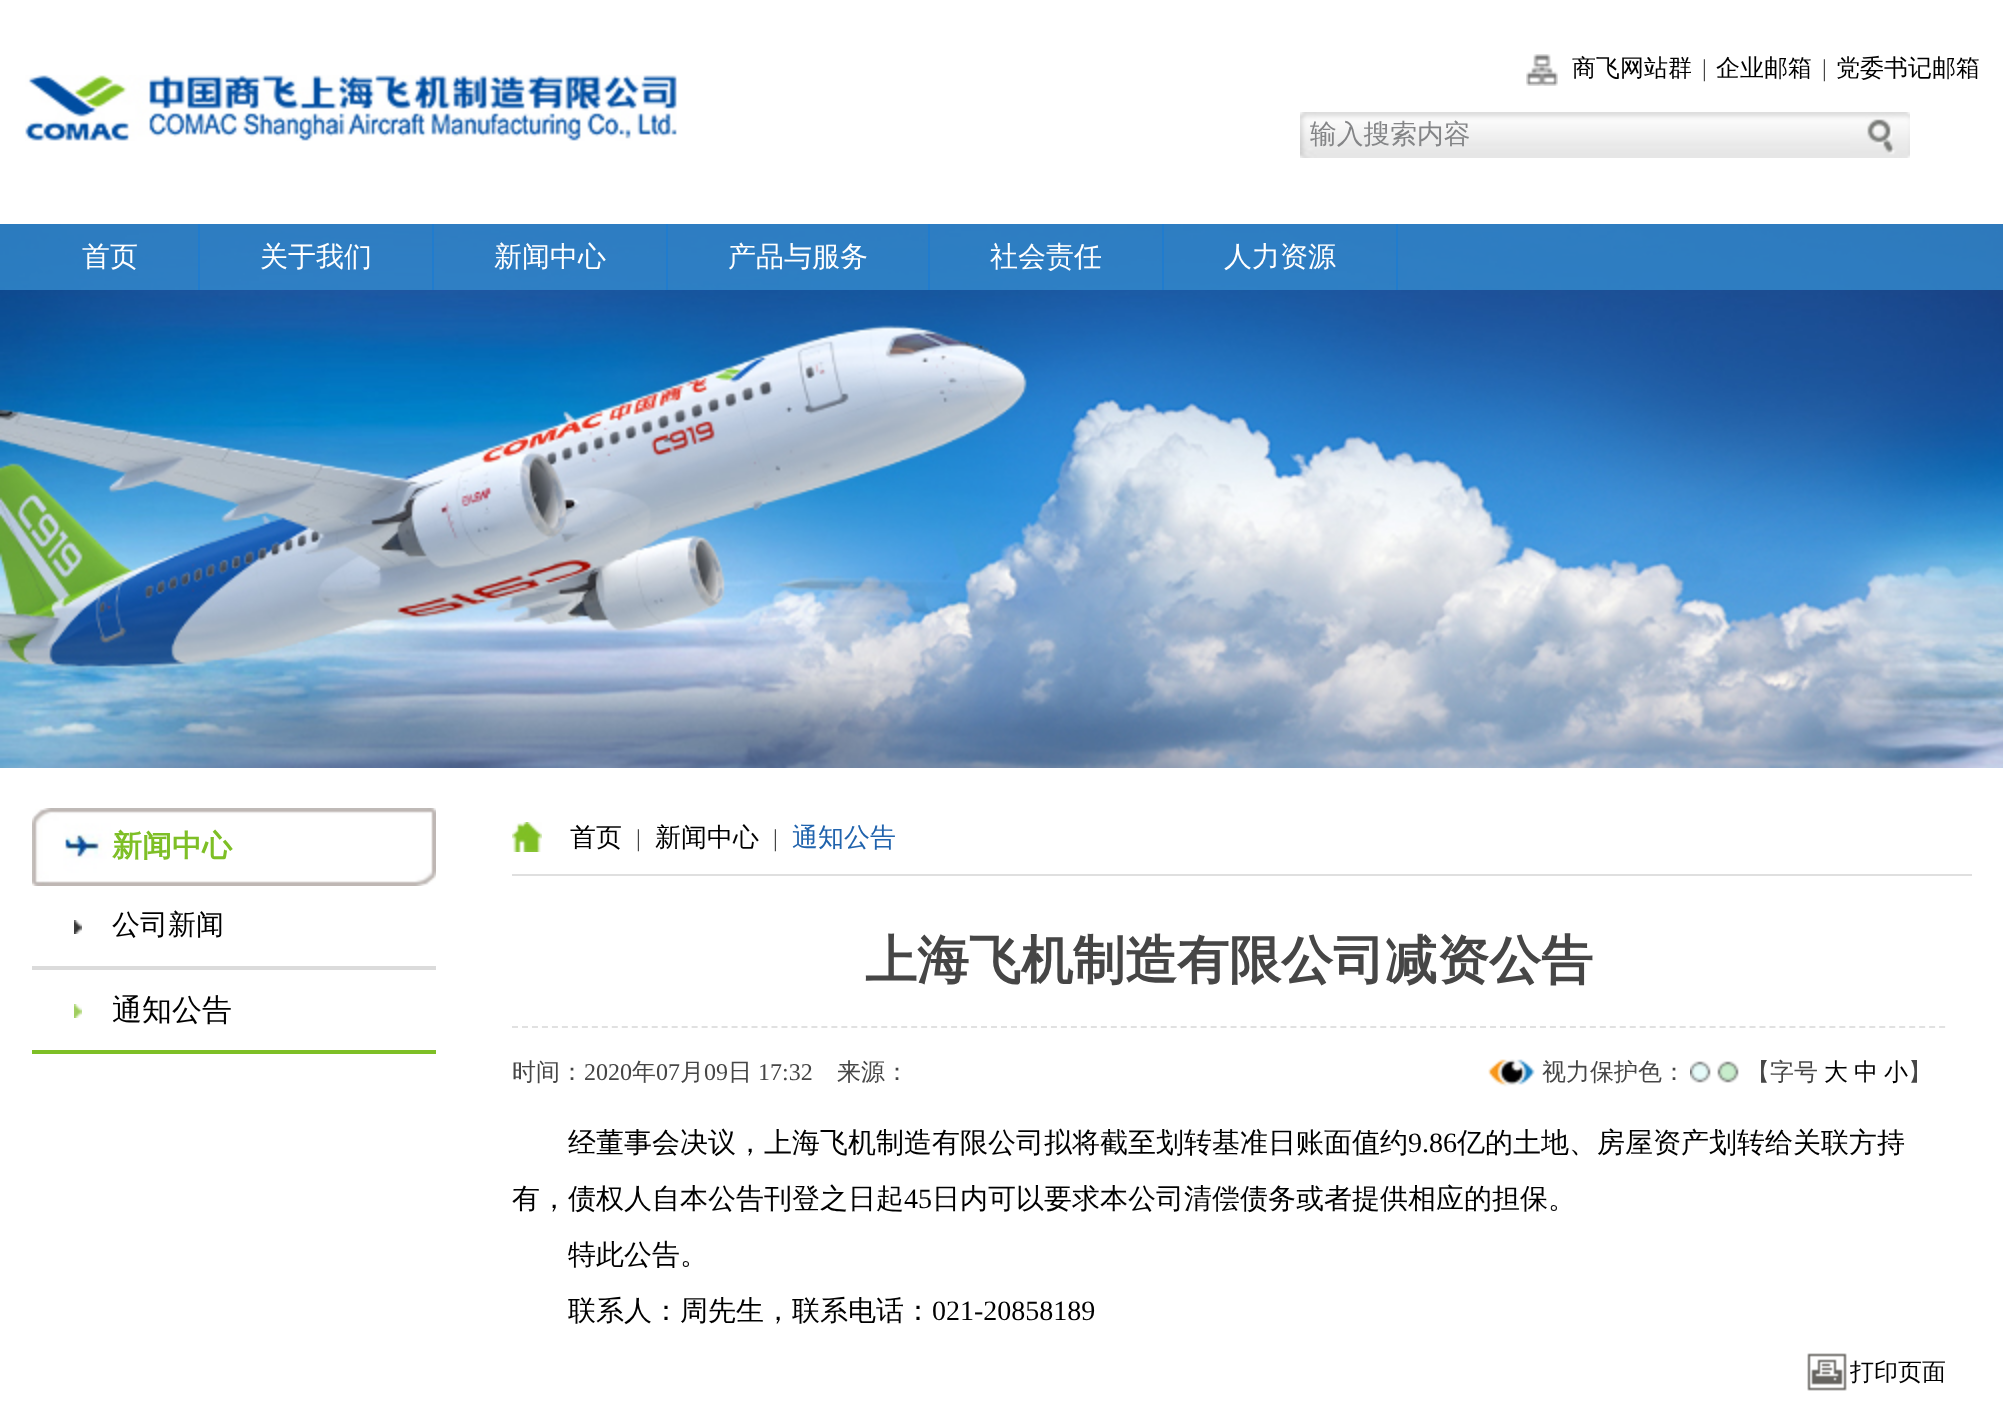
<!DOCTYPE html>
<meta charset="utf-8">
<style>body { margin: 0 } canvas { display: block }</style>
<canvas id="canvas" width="2003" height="1416"></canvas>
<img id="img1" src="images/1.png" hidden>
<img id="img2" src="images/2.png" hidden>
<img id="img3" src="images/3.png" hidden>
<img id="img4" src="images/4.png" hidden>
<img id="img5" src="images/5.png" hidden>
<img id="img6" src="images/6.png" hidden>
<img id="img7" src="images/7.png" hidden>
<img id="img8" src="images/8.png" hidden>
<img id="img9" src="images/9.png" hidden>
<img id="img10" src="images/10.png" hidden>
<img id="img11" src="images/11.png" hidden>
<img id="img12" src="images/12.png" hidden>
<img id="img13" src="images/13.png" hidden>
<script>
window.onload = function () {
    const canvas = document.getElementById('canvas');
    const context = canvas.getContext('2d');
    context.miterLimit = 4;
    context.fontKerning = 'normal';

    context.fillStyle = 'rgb(255, 255, 255)';
    context.fillRect(0, 0, 2003, 1416);
    context.drawImage(document.getElementById('img1'), 25, 75, 652, 66);
    context.drawImage(document.getElementById('img2'), 1526, 54, 32, 32);
    context.drawImage(document.getElementById('img3'), 1300, 112, 550, 46);
    context.drawImage(document.getElementById('img4'), 1850, 112, 60, 46);
    context.drawImage(document.getElementById('img5'), 0, 224, 2003, 544);
    context.fillStyle = 'rgba(51, 138, 205, 0.8)';
    context.fillRect(0, 224, 2003, 66);
    context.fillStyle = 'rgb(32, 124, 206)';
    context.fillRect(198, 224, 2, 66);
    context.fillRect(432, 224, 2, 66);
    context.fillRect(666, 224, 2, 66);
    context.fillRect(928, 224, 2, 66);
    context.fillRect(1162, 224, 2, 66);
    context.fillRect(1396, 224, 2, 66);
    context.drawImage(document.getElementById('img6'), 32, 808, 404, 78);
    context.drawImage(document.getElementById('img7'), 74, 920, 8, 14);
    context.fillStyle = 'rgb(219, 219, 219)';
    context.fillRect(32, 966, 404, 4);
    context.drawImage(document.getElementById('img8'), 74, 1004, 8, 14);
    context.fillStyle = 'rgb(126, 191, 38)';
    context.fillRect(32, 1050, 404, 4);
    context.drawImage(document.getElementById('img9'), 512, 822, 30, 30);
    context.fillStyle = 'rgb(223, 223, 223)';
    context.fillRect(512, 874, 1460, 2);
    context.beginPath();
    context.moveTo(512, 1027);
    context.lineTo(1946, 1027);
    context.strokeStyle = 'rgb(225, 225, 225)';
    context.lineWidth = 2;
    context.setLineDash([6, 3.98]);
    context.stroke();
    context.drawImage(document.getElementById('img10'), 1488, 1059, 47, 28);
    context.drawImage(document.getElementById('img11'), 1690, 1061, 21, 22);
    context.drawImage(document.getElementById('img12'), 1717, 1061, 22, 22);
    context.drawImage(document.getElementById('img13'), 1807, 1353, 40, 38);
    context.font = '500 24px WenQuanYi Zen Hei';
    context.fillStyle = 'rgb(0, 0, 0)';
    context.fillText('商飞网站群', 1572, 76);
    context.font = '24px Liberation Serif';
    context.fillStyle = 'rgb(70, 70, 70)';
    context.fillText('|', 1702, 76);
    context.font = '500 24px WenQuanYi Zen Hei';
    context.fillStyle = 'rgb(0, 0, 0)';
    context.fillText('企业邮箱', 1716, 76);
    context.font = '24px Liberation Serif';
    context.fillStyle = 'rgb(70, 70, 70)';
    context.fillText('|', 1822, 76);
    context.font = '500 24px WenQuanYi Zen Hei';
    context.fillStyle = 'rgb(0, 0, 0)';
    context.fillText('党委书记邮箱', 1836, 76);
    context.font = '500 26.75px WenQuanYi Zen Hei';
    context.fillStyle = 'rgb(132, 133, 135)';
    context.fillText('输入搜索内容', 1310, 143);
    context.font = '500 28px WenQuanYi Zen Hei';
    context.fillStyle = 'rgb(255, 255, 255)';
    context.fillText('首页', 82, 266);
    context.fillText('关于我们', 260, 266);
    context.fillText('新闻中心', 494, 266);
    context.fillText('产品与服务', 728, 266);
    context.fillText('社会责任', 990, 266);
    context.fillText('人力资源', 1224, 266);
    context.font = 'bold 30px WenQuanYi Zen Hei';
    context.fillStyle = 'rgb(126, 191, 38)';
    context.fillText('新闻中心', 112, 856);
    context.font = '500 28px WenQuanYi Zen Hei';
    context.fillStyle = 'rgb(0, 0, 0)';
    context.fillText('公司新闻', 112, 934);
    context.font = '500 30px WenQuanYi Zen Hei';
    context.fillText('通知公告', 112, 1020);
    context.font = '500 26px WenQuanYi Zen Hei';
    context.fillText('首页', 570, 846);
    context.font = '24px Liberation Serif';
    context.fillStyle = 'rgb(70, 70, 70)';
    context.fillText('|', 636, 846);
    context.font = '500 26px WenQuanYi Zen Hei';
    context.fillStyle = 'rgb(0, 0, 0)';
    context.fillText('新闻中心', 655, 846);
    context.font = '24px Liberation Serif';
    context.fillStyle = 'rgb(70, 70, 70)';
    context.fillText('|', 773, 846);
    context.font = '500 26px WenQuanYi Zen Hei';
    context.fillStyle = 'rgb(32, 99, 173)';
    context.fillText('通知公告', 792, 846);
    context.font = 'bold 52px WenQuanYi Zen Hei';
    context.fillStyle = 'rgb(70, 70, 70)';
    context.fillText('上海飞机制造有限公司减资公告', 865, 978);
    context.font = '500 24px WenQuanYi Zen Hei';
    context.fillText('时间：', 512, 1080);
    context.font = '24px Liberation Serif';
    context.fillText('2020', 584, 1080);
    context.font = '500 24px WenQuanYi Zen Hei';
    context.fillText('年', 632, 1080);
    context.font = '24px Liberation Serif';
    context.fillText('07', 656, 1080);
    context.font = '500 24px WenQuanYi Zen Hei';
    context.fillText('月', 680, 1080);
    context.font = '24px Liberation Serif';
    context.fillText('09', 704, 1080);
    context.font = '500 24px WenQuanYi Zen Hei';
    context.fillText('日', 728, 1080);
    context.font = '24px Liberation Serif';
    context.fillText('17:32', 758, 1080);
    context.font = '500 24px WenQuanYi Zen Hei';
    context.fillText('来源：', 837, 1080);
    context.fillText('视力保护色：', 1542, 1080);
    context.fillText('【字号', 1746, 1080);
    context.fillStyle = 'rgb(0, 0, 0)';
    context.fillText('大', 1824, 1080);
    context.fillText('中', 1854, 1080);
    context.fillText('小', 1884, 1080);
    context.fillStyle = 'rgb(70, 70, 70)';
    context.fillText('】', 1908, 1080);
    context.font = '500 28px WenQuanYi Zen Hei';
    context.fillStyle = 'rgb(0, 0, 0)';
    context.fillText('经董事会决议，上海飞机制造有限公司拟将截至划转基准日账面值约', 568, 1152);
    context.font = '28px Liberation Serif';
    context.fillText('9.86', 1408, 1152);
    context.font = '500 28px WenQuanYi Zen Hei';
    context.fillText('亿的土地、房屋资产划转给关联方持', 1457, 1152);
    context.fillText('有，债权人自本公告刊登之日起', 512, 1208);
    context.font = '28px Liberation Serif';
    context.fillText('45', 904, 1208);
    context.font = '500 28px WenQuanYi Zen Hei';
    context.fillText('日内可以要求本公司清偿债务或者提供相应的担保。', 932, 1208);
    context.fillText('特此公告。', 568, 1264);
    context.fillText('联系人：周先生，联系电话：', 568, 1320);
    context.font = '28px Liberation Serif';
    context.fillText('021-20858189', 932, 1320);
    context.font = '500 24px WenQuanYi Zen Hei';
    context.fillText('打印页面', 1850, 1380);
};
</script>
